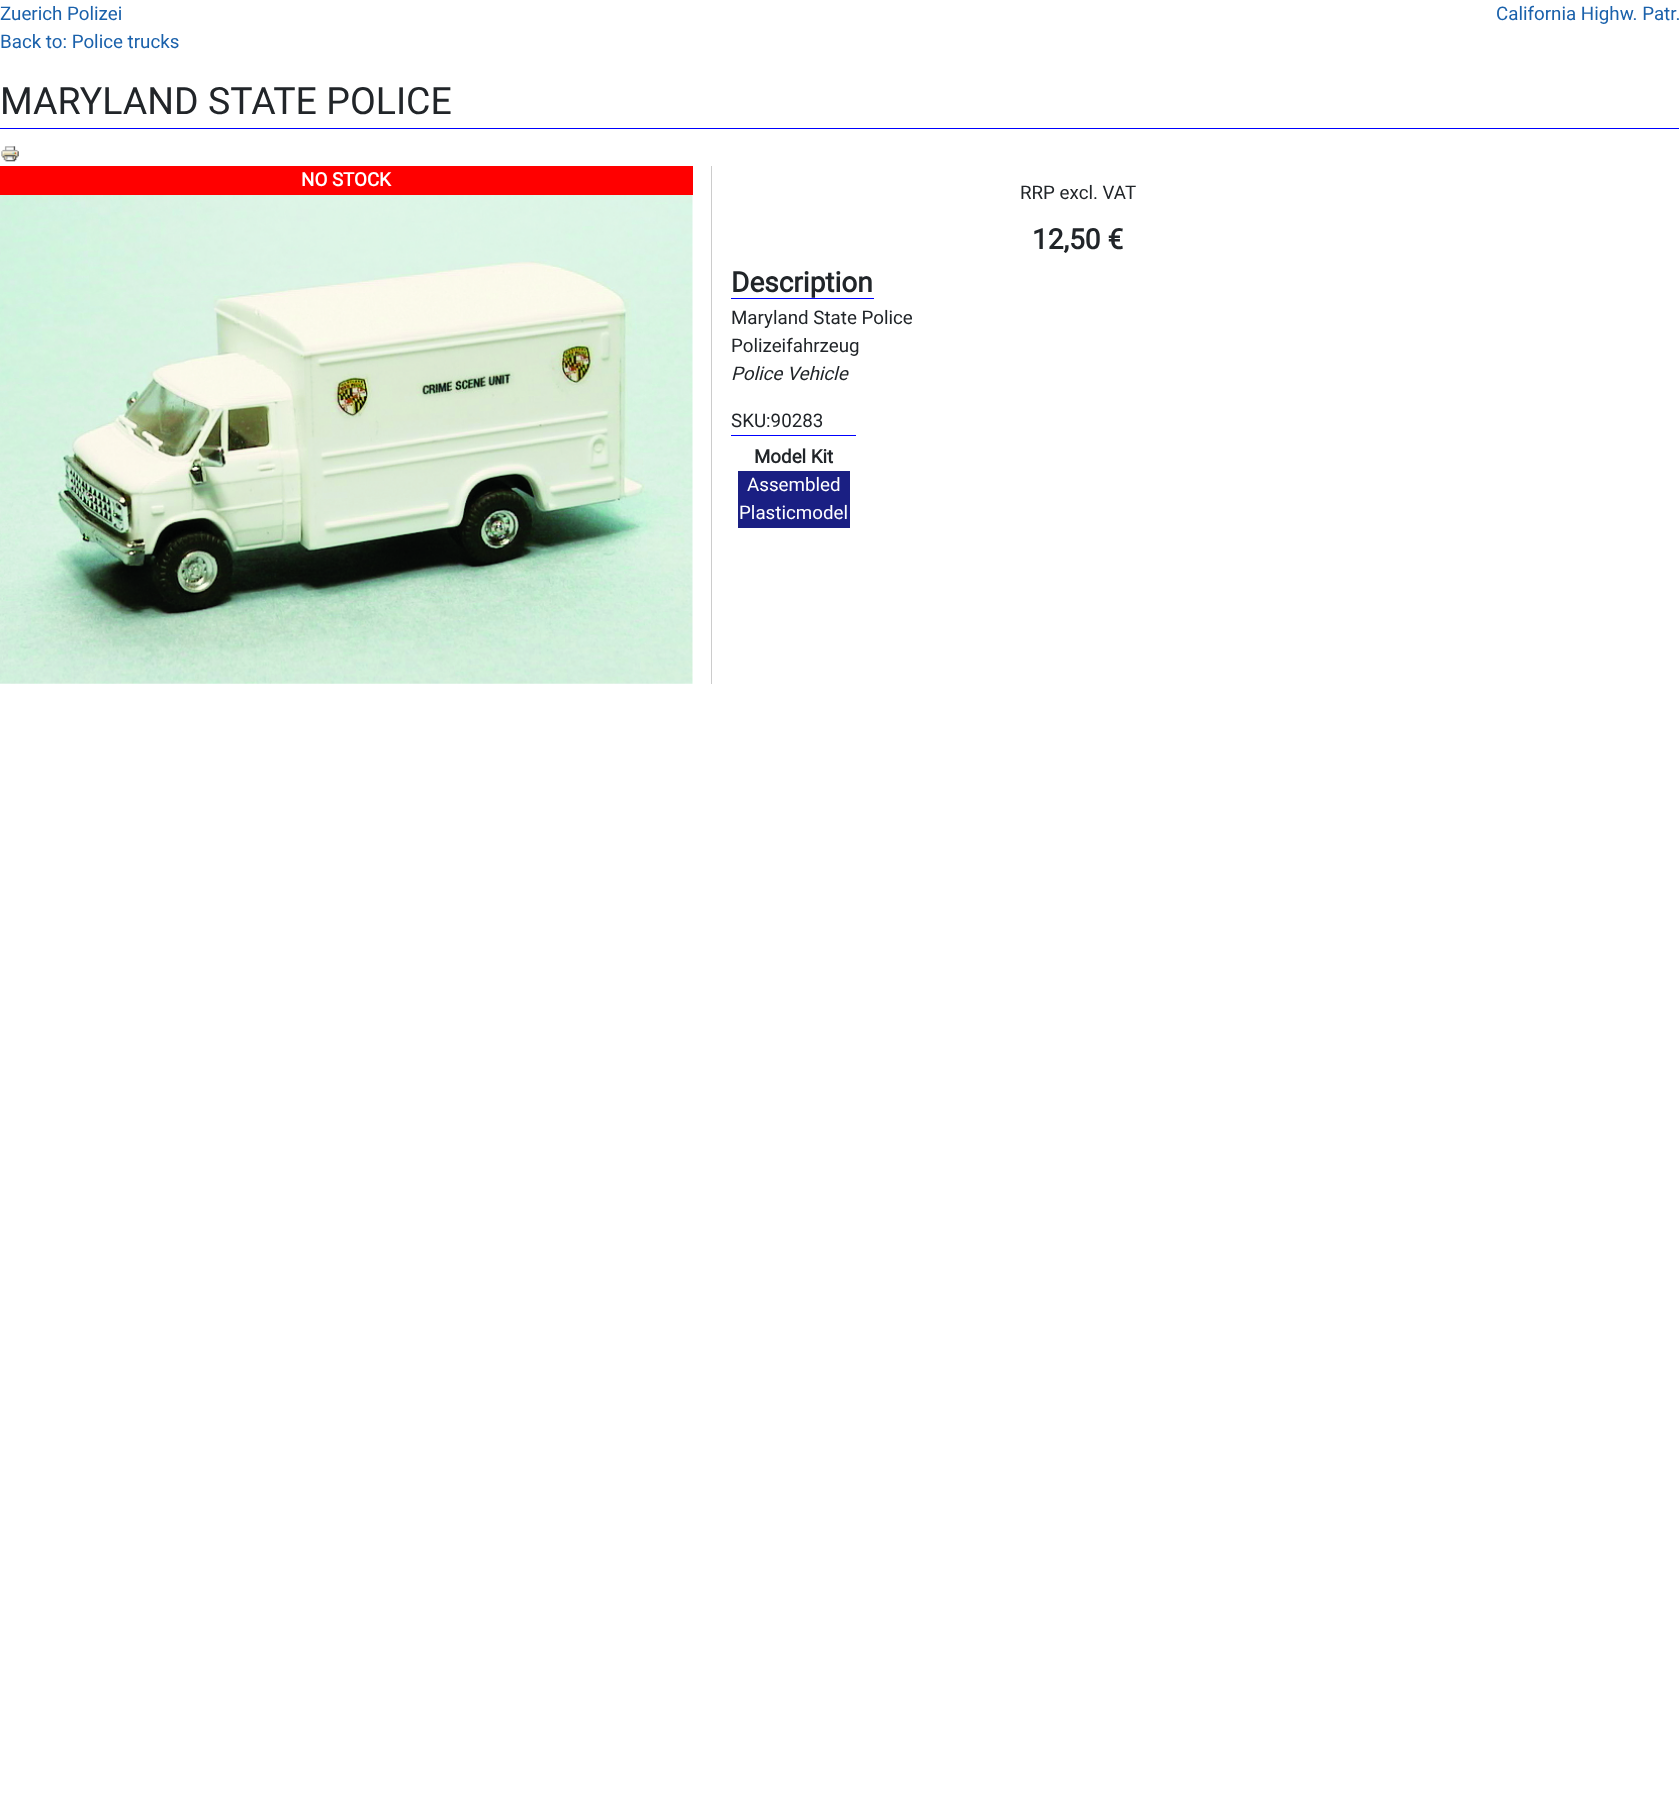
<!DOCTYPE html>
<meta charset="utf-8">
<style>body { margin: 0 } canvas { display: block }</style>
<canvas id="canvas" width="1679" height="1804"></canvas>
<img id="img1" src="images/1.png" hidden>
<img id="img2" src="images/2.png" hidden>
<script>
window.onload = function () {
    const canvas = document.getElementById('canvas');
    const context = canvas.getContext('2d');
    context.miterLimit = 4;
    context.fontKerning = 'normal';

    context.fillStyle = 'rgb(255, 255, 255)';
    context.fillRect(0, 0, 1679, 1804);
    context.fillStyle = 'rgb(0, 0, 255)';
    context.fillRect(0, 128, 1679, 1);
    context.drawImage(document.getElementById('img1'), 1, 146, 18, 16);
    context.fillStyle = 'rgb(204, 204, 204)';
    context.fillRect(711, 166, 1, 518);
    context.fillStyle = 'rgb(255, 0, 0)';
    context.fillRect(0, 166, 693, 29);
    context.drawImage(document.getElementById('img2'), 0, 195, 693, 489);
    context.fillStyle = 'rgb(0, 0, 255)';
    context.fillRect(731, 298, 143, 1);
    context.fillRect(731, 435, 125, 1);
    context.fillStyle = 'rgb(26, 31, 131)';
    context.fillRect(738, 471, 112, 57);
    context.font = '18.75px Roboto';
    context.fillStyle = 'rgb(26, 97, 171)';
    context.fillText('Zuerich Polizei', 0, 20);
    context.fillText('California Highw. Patr.', 1496, 20);
    context.fillText('Back to: Police trucks', 0, 48);
    context.font = '37.5px Roboto';
    context.fillStyle = 'rgb(33, 37, 41)';
    context.fillText('MARYLAND STATE POLICE', 0, 114);
    context.font = 'bold 18.75px Roboto';
    context.fillStyle = 'rgb(255, 255, 255)';
    context.fillText('NO STOCK', 301, 186);
    context.font = '18.75px Roboto';
    context.fillStyle = 'rgb(33, 37, 41)';
    context.fillText('RRP excl. VAT', 1020, 199);
    context.font = 'bold 28px Roboto';
    context.fillText('12,50 €', 1032, 249);
    context.fillText('Description', 731, 292);
    context.font = '18.75px Roboto';
    context.fillText('Maryland State Police', 731, 324);
    context.fillText('Polizeifahrzeug', 731, 352);
    context.font = 'italic 18.75px Roboto';
    context.fillText('Police Vehicle', 731, 380);
    context.font = '18.75px Roboto';
    context.fillText('SKU:90283', 731, 427);
    context.font = 'bold 18.75px Roboto';
    context.fillText('Model Kit', 754, 463);
    context.font = '18.75px Roboto';
    context.fillStyle = 'rgb(255, 255, 255)';
    context.fillText('Assembled', 747, 491);
    context.fillText('Plasticmodel', 739, 519);
};
</script>
